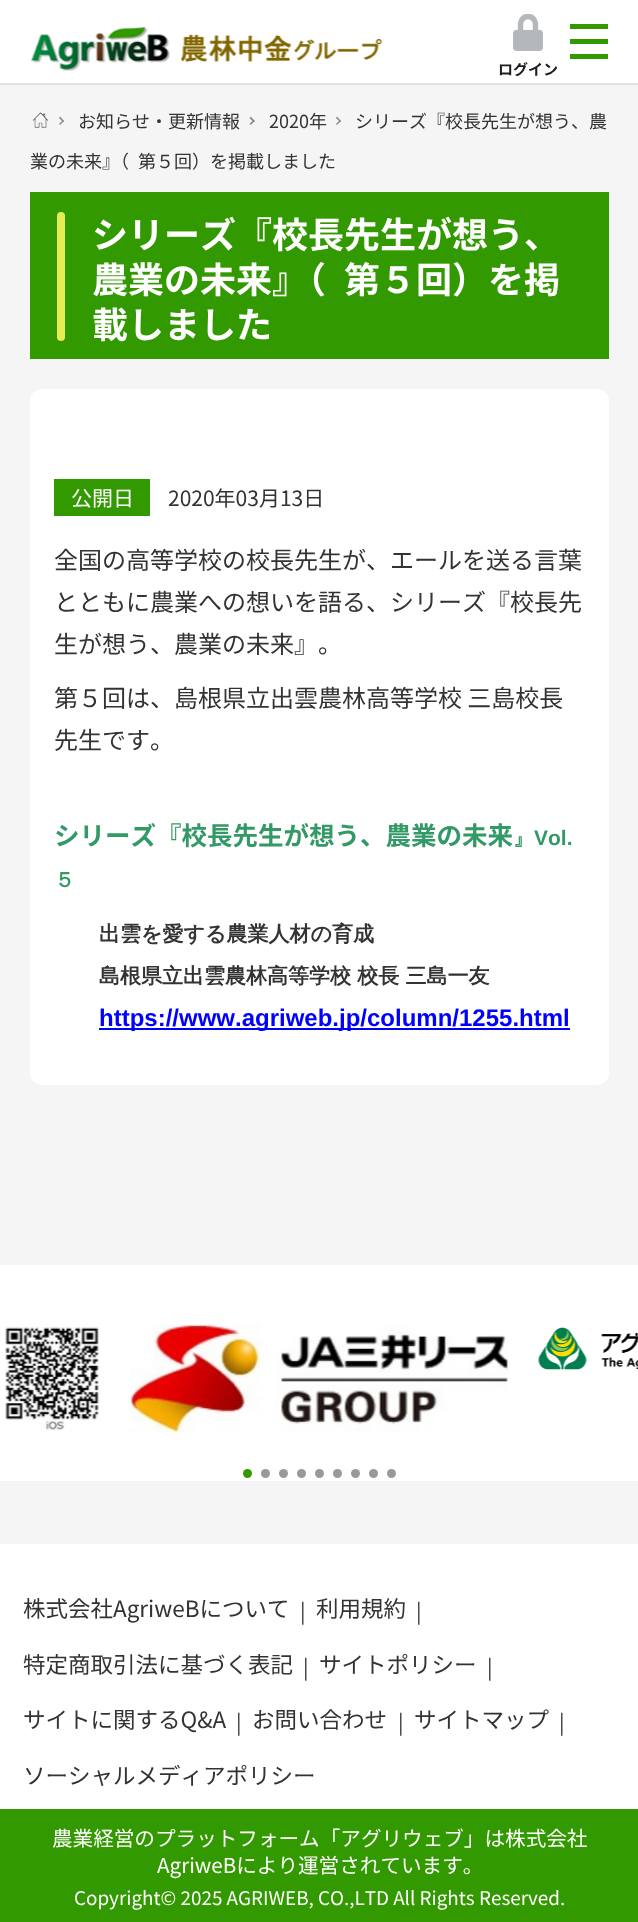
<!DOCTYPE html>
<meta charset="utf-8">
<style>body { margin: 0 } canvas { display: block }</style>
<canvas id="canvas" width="638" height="1922"></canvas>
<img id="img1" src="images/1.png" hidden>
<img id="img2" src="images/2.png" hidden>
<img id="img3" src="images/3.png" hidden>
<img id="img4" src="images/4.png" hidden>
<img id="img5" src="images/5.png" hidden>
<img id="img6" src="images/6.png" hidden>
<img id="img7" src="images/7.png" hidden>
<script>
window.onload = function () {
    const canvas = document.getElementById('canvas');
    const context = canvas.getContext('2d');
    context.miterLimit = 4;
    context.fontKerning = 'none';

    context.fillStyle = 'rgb(245, 245, 245)';
    context.fillRect(0, 0, 638, 1922);
    context.fillStyle = 'rgb(224, 226, 231)';
    context.fillRect(0, 83, 638, 2);
    context.fillStyle = 'rgb(255, 255, 255)';
    context.fillRect(0, 0, 638, 83);
    context.drawImage(document.getElementById('img1'), 31, 27, 139, 44);
    context.drawImage(document.getElementById('img2'), 181, 34, 202, 29);
    context.fillStyle = 'rgb(51, 153, 0)';
    context.fillRect(570, 24, 38, 5);
    context.fillRect(570, 39, 38, 5);
    context.fillRect(570, 54, 38, 5);
    context.drawImage(document.getElementById('img3'), 513, 14, 30, 37);
    context.fillStyle = 'rgb(136, 136, 136)';
    context.beginPath();
    context.moveTo(337, 116.5);
    context.lineTo(341, 121);
    context.lineTo(340, 122);
    context.lineTo(336, 118);
    context.closePath();
    context.fill();
    context.beginPath();
    context.moveTo(340, 120);
    context.lineTo(341, 121);
    context.lineTo(337, 125);
    context.lineTo(336, 124);
    context.closePath();
    context.fill();
    context.drawImage(document.getElementById('img4'), 33, 112, 15, 16);
    context.beginPath();
    context.moveTo(60, 116.5);
    context.lineTo(64, 121);
    context.lineTo(63, 122);
    context.lineTo(59, 118);
    context.closePath();
    context.fill();
    context.beginPath();
    context.moveTo(63, 120);
    context.lineTo(64, 121);
    context.lineTo(60, 125);
    context.lineTo(59, 124);
    context.closePath();
    context.fill();
    context.beginPath();
    context.moveTo(250.5, 116.5);
    context.lineTo(255, 121);
    context.lineTo(253.5, 122);
    context.lineTo(249.5, 118);
    context.closePath();
    context.fill();
    context.beginPath();
    context.moveTo(253.5, 120);
    context.lineTo(255, 121);
    context.lineTo(250.5, 125);
    context.lineTo(249.5, 124);
    context.closePath();
    context.fill();
    context.fillStyle = 'rgb(51, 153, 0)';
    context.fillRect(30, 192, 579, 167);
    context.fillStyle = 'rgb(231, 236, 84)';
    context.beginPath();
    context.roundRect(57, 212, 8, 129, 4);
    context.fill();
    context.fillStyle = 'rgb(255, 255, 255)';
    context.beginPath();
    context.roundRect(30, 389, 579, 696, 12);
    context.fill();
    context.fillStyle = 'rgb(51, 153, 0)';
    context.fillRect(54, 479, 96, 37);
    context.fillStyle = 'rgb(0, 0, 255)';
    context.fillRect(99, 1028, 471, 2);
    context.fillStyle = 'rgb(255, 255, 255)';
    context.fillRect(0, 1265, 638, 216);
    context.drawImage(document.getElementById('img5'), 5, 1326, 95, 104);
    context.drawImage(document.getElementById('img6'), 130, 1324, 378, 109);
    context.drawImage(document.getElementById('img7'), 538, 1327, 100, 43);
    context.fillStyle = 'rgb(51, 153, 0)';
    context.beginPath();
    context.arc(247.5, 1473.5, 4.5, 0, 2 * Math.PI);
    context.fill();
    context.fillStyle = 'rgb(153, 153, 153)';
    context.beginPath();
    context.arc(265.5, 1473.5, 4.5, 0, 2 * Math.PI);
    context.fill();
    context.beginPath();
    context.arc(283.5, 1473.5, 4.5, 0, 2 * Math.PI);
    context.fill();
    context.beginPath();
    context.arc(301.5, 1473.5, 4.5, 0, 2 * Math.PI);
    context.fill();
    context.beginPath();
    context.arc(319.5, 1473.5, 4.5, 0, 2 * Math.PI);
    context.fill();
    context.beginPath();
    context.arc(337.5, 1473.5, 4.5, 0, 2 * Math.PI);
    context.fill();
    context.beginPath();
    context.arc(355.5, 1473.5, 4.5, 0, 2 * Math.PI);
    context.fill();
    context.beginPath();
    context.arc(373.5, 1473.5, 4.5, 0, 2 * Math.PI);
    context.fill();
    context.beginPath();
    context.arc(391.5, 1473.5, 4.5, 0, 2 * Math.PI);
    context.fill();
    context.fillStyle = 'rgb(255, 255, 255)';
    context.fillRect(0, 1544, 638, 265);
    context.fillStyle = 'rgb(51, 153, 0)';
    context.fillRect(0, 1809, 638, 113);
    context.font = 'bold 15px Noto Sans JP';
    context.fillStyle = 'rgb(29, 29, 29)';
    context.fillText('ログイン', 498, 75);
    context.font = '18px Noto Sans JP';
    context.fillStyle = 'rgb(51, 51, 51)';
    context.fillText('シリーズ『校長先生が想う、農', 355, 128);
    context.fillText('業の未来』（', 30, 168);
    context.fillText('第５回）を掲載しました', 138, 168);
    context.fillText('お知らせ・更新情報', 78, 128);
    context.fillText('2020年', 269, 128);
    context.font = 'bold 36px Noto Sans JP';
    context.fillStyle = 'rgb(255, 255, 255)';
    context.fillText('シリーズ『校長先生が想う、', 92, 248);
    context.fillText('農業の未来』（', 92, 293);
    context.fillText('第５回）を掲', 344, 293);
    context.fillText('載しました', 92, 338);
    context.font = '21px Noto Sans JP';
    context.fillText('公開日', 71, 506);
    context.fillStyle = 'rgb(51, 51, 51)';
    context.fillText('2020年03月13日', 168, 506);
    context.font = '24px Noto Sans JP';
    context.fillText('全国の高等学校の校長先生が、エールを送る言葉', 54, 569);
    context.fillText('とともに農業への想いを語る、シリーズ『校長先', 54, 611);
    context.fillText('生が想う、農業の未来』', 54, 653);
    context.fillText('。', 318, 653);
    context.fillText('第５回は、島根県立出雲農林高等学校 三島校長', 54, 707);
    context.fillText('先生です。', 54, 749);
    context.font = 'bold 25.5px Noto Sans JP';
    context.fillStyle = 'rgb(51, 153, 102)';
    context.fillText('シリーズ『校長先生が想う、農業の未来', 54, 845);
    context.font = 'bold 21px WenQuanYi Zen Hei';
    context.fillText('』', 513, 845);
    context.font = 'bold 21px Liberation Sans';
    context.fillText('Vol.', 534, 845);
    context.font = 'bold 21px WenQuanYi Zen Hei';
    context.fillText('５', 54, 887);
    context.fillStyle = 'rgb(51, 51, 51)';
    context.fillText('出雲を愛する農業人材の育成', 99, 941);
    context.fillText('島根県立出雲農林高等学校 校長 三島一友', 99, 983);
    context.font = 'bold 24px Liberation Sans';
    context.fillStyle = 'rgb(0, 0, 255)';
    context.fillText('https://www.agriweb.jp/column/1255.html', 99, 1026);
    context.font = '22.5px Noto Sans JP';
    context.fillStyle = 'rgb(51, 51, 51)';
    context.fillText('株式会社AgriweBについて', 23, 1617);
    context.font = '20.6px Noto Sans JP';
    context.fillText('|', 300, 1619);
    context.font = '22.5px Noto Sans JP';
    context.fillText('利用規約', 316, 1617);
    context.font = '20.6px Noto Sans JP';
    context.fillText('|', 416, 1619);
    context.font = '22.5px Noto Sans JP';
    context.fillText('特定商取引法に基づく表記', 23, 1673);
    context.font = '20.6px Noto Sans JP';
    context.fillText('|', 303, 1675);
    context.font = '22.5px Noto Sans JP';
    context.fillText('サイトポリシー', 319, 1673);
    context.font = '20.6px Noto Sans JP';
    context.fillText('|', 487, 1675);
    context.font = '22.5px Noto Sans JP';
    context.fillText('サイトに関するQ&A', 23, 1728);
    context.font = '20.6px Noto Sans JP';
    context.fillText('|', 236, 1730);
    context.font = '22.5px Noto Sans JP';
    context.fillText('お問い合わせ', 252, 1728);
    context.font = '20.6px Noto Sans JP';
    context.fillText('|', 398, 1730);
    context.font = '22.5px Noto Sans JP';
    context.fillText('サイトマップ', 414, 1728);
    context.font = '20.6px Noto Sans JP';
    context.fillText('|', 559, 1730);
    context.font = '22.5px Noto Sans JP';
    context.fillText('ソーシャルメディアポリシー', 23, 1784);
    context.font = '20.6px Noto Sans JP';
    context.fillStyle = 'rgb(255, 255, 255)';
    context.fillText('農業経営のプラットフォーム「アグリウェブ」は株式会社', 52, 1846);
    context.fillText('AgriweBにより運営されています。', 157, 1873);
    context.font = '18.85px Noto Sans JP';
    context.fillText('Copyright© 2025 AGRIWEB, CO.,LTD All Rights', 74, 1905);
    context.fillText('Reserved.', 479, 1905);
};
</script>
